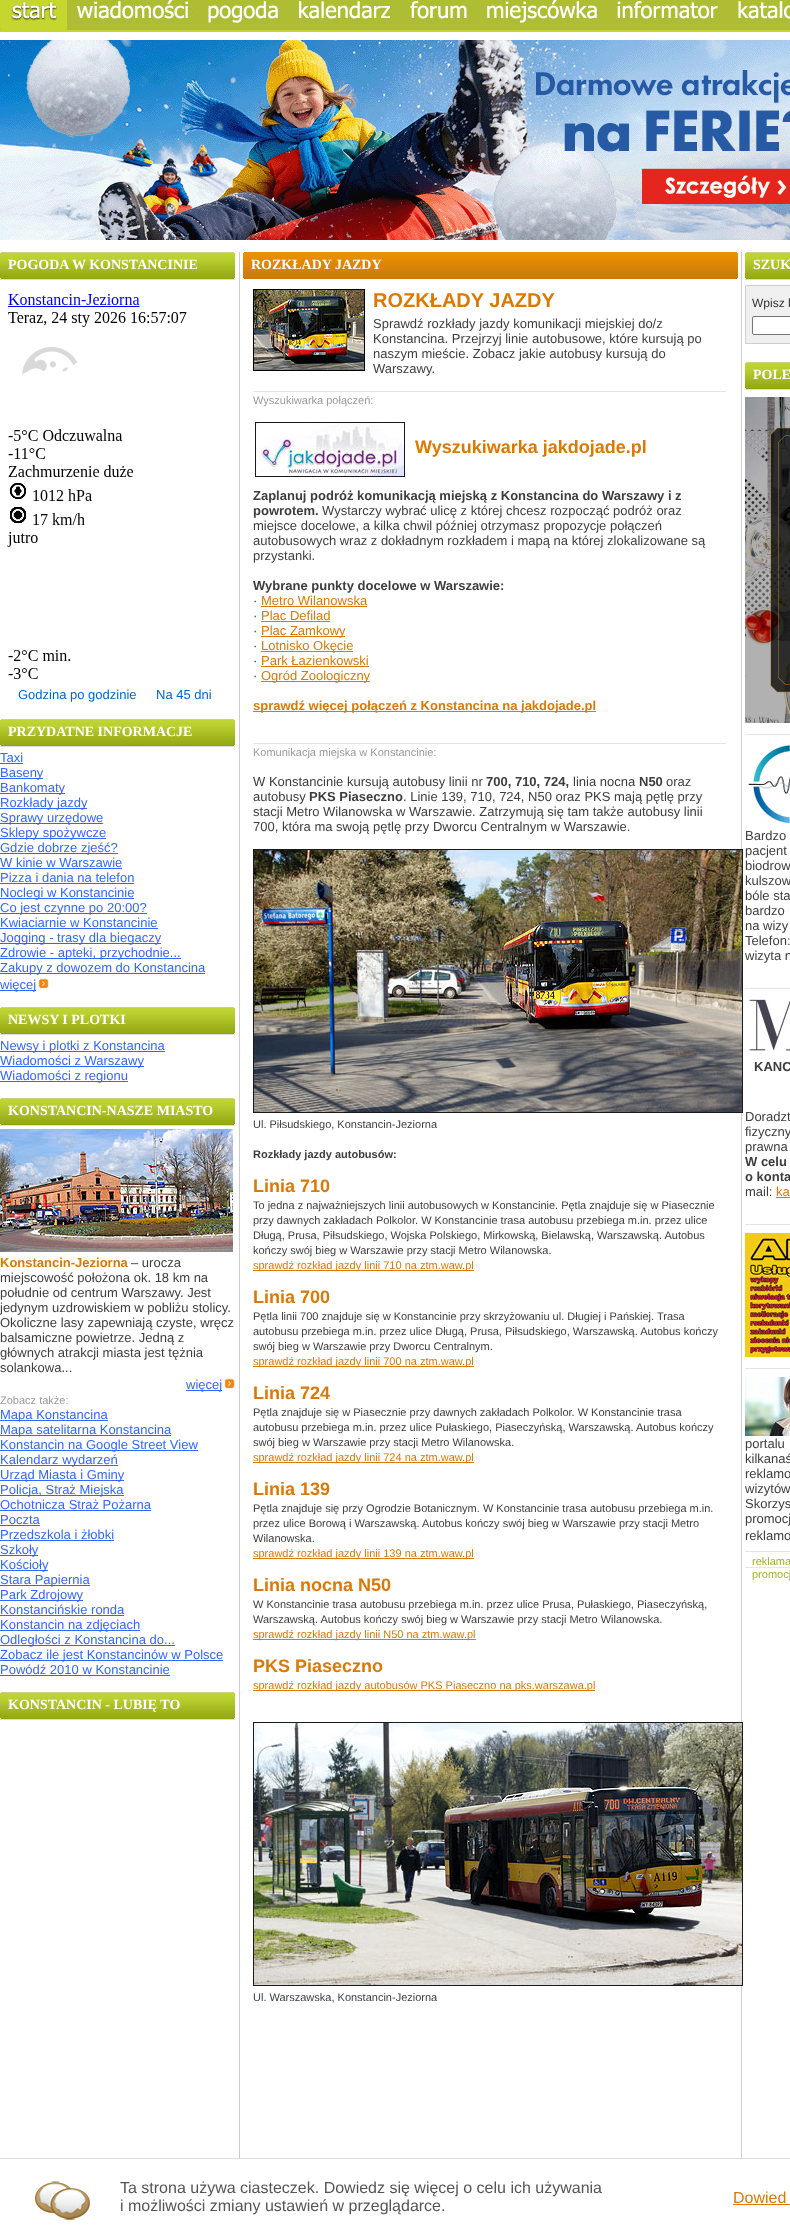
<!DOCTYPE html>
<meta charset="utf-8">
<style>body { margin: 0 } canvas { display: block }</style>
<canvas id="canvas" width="790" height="2239"></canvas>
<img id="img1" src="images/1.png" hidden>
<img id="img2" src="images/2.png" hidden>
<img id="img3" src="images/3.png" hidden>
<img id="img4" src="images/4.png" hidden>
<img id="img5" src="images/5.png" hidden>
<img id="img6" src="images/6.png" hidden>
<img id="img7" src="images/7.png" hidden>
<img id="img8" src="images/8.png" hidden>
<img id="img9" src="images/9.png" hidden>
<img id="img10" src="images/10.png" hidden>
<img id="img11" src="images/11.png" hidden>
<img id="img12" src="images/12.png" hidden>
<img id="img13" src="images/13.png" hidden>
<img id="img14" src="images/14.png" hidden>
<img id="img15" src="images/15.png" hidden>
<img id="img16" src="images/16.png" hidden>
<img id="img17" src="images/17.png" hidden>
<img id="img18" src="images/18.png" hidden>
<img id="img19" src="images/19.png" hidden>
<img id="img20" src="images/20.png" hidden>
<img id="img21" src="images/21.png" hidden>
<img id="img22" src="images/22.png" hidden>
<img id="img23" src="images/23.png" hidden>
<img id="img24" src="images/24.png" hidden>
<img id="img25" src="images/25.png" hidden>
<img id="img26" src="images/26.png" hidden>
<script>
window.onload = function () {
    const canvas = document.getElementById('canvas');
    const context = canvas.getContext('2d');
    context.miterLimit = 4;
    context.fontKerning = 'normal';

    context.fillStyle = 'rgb(255, 255, 255)';
    context.fillRect(0, 0, 790, 2239);
    context.drawImage(document.getElementById('img1'), 0, 30, 790, 2);
    context.drawImage(document.getElementById('img2'), 0, 0, 67, 30);
    context.drawImage(document.getElementById('img3'), 67, 0, 131, 30);
    context.drawImage(document.getElementById('img4'), 198, 0, 91, 30);
    context.drawImage(document.getElementById('img5'), 289, 0, 112, 30);
    context.drawImage(document.getElementById('img6'), 401, 0, 76, 30);
    context.drawImage(document.getElementById('img7'), 477, 0, 130, 30);
    context.drawImage(document.getElementById('img8'), 607, 0, 121, 30);
    context.drawImage(document.getElementById('img9'), 728, 0, 62, 30);
    context.drawImage(document.getElementById('img10'), 0, 40, 790, 200);
    context.fillStyle = 'rgb(205, 205, 205)';
    context.fillRect(239, 252, 1, 1909);
    context.drawImage(document.getElementById('img11'), 0, 252, 235, 27);
    context.fillStyle = 'rgb(221, 221, 221)';
    context.fillRect(0, 279, 235, 1);
    context.drawImage(document.getElementById('img12'), 7, 294, 180, 385);
    context.drawImage(document.getElementById('img11'), 0, 719, 235, 27);
    context.fillRect(0, 746, 235, 1);
    context.fillStyle = 'rgb(51, 102, 255)';
    context.fillRect(0, 763, 23, 1);
    context.fillRect(0, 778, 43, 1);
    context.fillRect(0, 793, 65, 1);
    context.fillRect(0, 808, 87, 1);
    context.fillRect(0, 823, 103, 1);
    context.fillRect(0, 838, 106, 1);
    context.fillRect(0, 853, 118, 1);
    context.fillRect(0, 868, 122, 1);
    context.fillRect(0, 883, 134, 1);
    context.fillRect(0, 898, 134, 1);
    context.fillRect(0, 913, 147, 1);
    context.fillRect(0, 928, 158, 1);
    context.fillRect(0, 943, 161, 1);
    context.fillRect(0, 958, 181, 1);
    context.fillRect(0, 973, 205, 1);
    context.fillRect(0, 990, 36, 1);
    context.drawImage(document.getElementById('img13'), 38, 978, 11, 11);
    context.drawImage(document.getElementById('img11'), 0, 1007, 235, 27);
    context.fillStyle = 'rgb(221, 221, 221)';
    context.fillRect(0, 1034, 235, 1);
    context.fillStyle = 'rgb(51, 102, 255)';
    context.fillRect(0, 1051, 165, 1);
    context.fillRect(0, 1066, 144, 1);
    context.fillRect(0, 1081, 128, 1);
    context.drawImage(document.getElementById('img11'), 0, 1098, 235, 27);
    context.fillStyle = 'rgb(221, 221, 221)';
    context.fillRect(0, 1125, 235, 1);
    context.drawImage(document.getElementById('img14'), 0, 1129, 233, 123);
    context.fillStyle = 'rgb(51, 102, 255)';
    context.fillRect(186, 1390, 36, 1);
    context.drawImage(document.getElementById('img13'), 224, 1378, 11, 11);
    context.fillRect(0, 1420, 108, 1);
    context.fillRect(0, 1435, 171, 1);
    context.fillRect(0, 1450, 198, 1);
    context.fillRect(0, 1465, 118, 1);
    context.fillRect(0, 1480, 124, 1);
    context.fillRect(0, 1495, 124, 1);
    context.fillRect(0, 1510, 151, 1);
    context.fillRect(0, 1525, 40, 1);
    context.fillRect(0, 1540, 114, 1);
    context.fillRect(0, 1555, 38, 1);
    context.fillRect(0, 1570, 48, 1);
    context.fillRect(0, 1585, 90, 1);
    context.fillRect(0, 1600, 83, 1);
    context.fillRect(0, 1615, 124, 1);
    context.fillRect(0, 1630, 140, 1);
    context.fillRect(0, 1645, 175, 1);
    context.fillRect(0, 1660, 223, 1);
    context.fillRect(0, 1675, 170, 1);
    context.drawImage(document.getElementById('img11'), 0, 1692, 235, 27);
    context.fillStyle = 'rgb(221, 221, 221)';
    context.fillRect(0, 1719, 235, 1);
    context.fillStyle = 'rgb(205, 205, 205)';
    context.fillRect(741, 252, 1, 1909);
    context.drawImage(document.getElementById('img15'), 243, 252, 495, 27);
    context.strokeStyle = 'rgb(0, 0, 0)';
    context.strokeRect(253.5, 289.5, 111, 81);
    context.drawImage(document.getElementById('img16'), 254, 290, 110, 80);
    context.fillStyle = 'rgb(230, 228, 229)';
    context.fillRect(253, 391, 473, 1);
    context.drawImage(document.getElementById('img17'), 255, 422, 150, 55);
    context.fillStyle = 'rgb(220, 120, 3)';
    context.fillRect(261, 606, 106, 1);
    context.fillRect(261, 621, 69, 1);
    context.fillRect(261, 636, 84, 1);
    context.fillRect(261, 651, 92, 1);
    context.fillRect(261, 666, 108, 1);
    context.fillRect(261, 681, 109, 1);
    context.fillRect(253, 711, 343, 1);
    context.fillStyle = 'rgb(230, 228, 229)';
    context.fillRect(253, 743, 473, 1);
    context.drawImage(document.getElementById('img18'), 253, 849, 490, 264);
    context.fillStyle = 'rgb(220, 120, 3)';
    context.fillRect(253, 1270, 221, 1);
    context.fillRect(253, 1366, 221, 1);
    context.fillRect(253, 1462, 221, 1);
    context.fillRect(253, 1558, 221, 1);
    context.fillRect(253, 1639, 223, 1);
    context.fillRect(253, 1690, 342, 1);
    context.drawImage(document.getElementById('img19'), 253, 1722, 490, 264);
    context.drawImage(document.getElementById('img20'), 745, 252, 45, 27);
    context.fillStyle = 'rgb(221, 221, 221)';
    context.fillRect(745, 279, 45, 1);
    context.fillStyle = 'rgb(240, 240, 240)';
    context.beginPath();
    context.roundRect(745.5, 285.5, 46, 58, 0.5);
    context.fill();
    context.strokeStyle = 'rgb(210, 204, 206)';
    context.stroke();
    context.fillStyle = 'rgb(255, 255, 255)';
    context.beginPath();
    context.roundRect(752.5, 316.5, 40, 18, 1.5);
    context.fill();
    context.strokeStyle = 'rgb(118, 118, 118)';
    context.stroke();
    context.drawImage(document.getElementById('img20'), 745, 362, 45, 27);
    context.fillStyle = 'rgb(221, 221, 221)';
    context.fillRect(745, 389, 45, 1);
    context.drawImage(document.getElementById('img21'), 745, 397, 45, 326);
    context.fillStyle = 'rgb(230, 228, 229)';
    context.fillRect(745, 734, 45, 1);
    context.drawImage(document.getElementById('img22'), 745, 743, 45, 80);
    context.fillRect(745, 988, 45, 1);
    context.drawImage(document.getElementById('img23'), 748, 997, 42, 56);
    context.fillStyle = 'rgb(220, 120, 3)';
    context.fillRect(776, 1197, 14, 1);
    context.fillStyle = 'rgb(230, 228, 229)';
    context.fillRect(745, 1224, 45, 1);
    context.drawImage(document.getElementById('img24'), 745, 1233, 45, 124);
    context.fillRect(745, 1368, 45, 1);
    context.drawImage(document.getElementById('img25'), 745, 1377, 45, 59);
    context.fillRect(745, 1551, 45, 1);
    context.fillRect(745, 1567, 45, 1);
    context.fillStyle = 'rgb(255, 255, 255)';
    context.fillRect(239, 2159, 503, 2);
    context.fillStyle = 'rgb(221, 221, 221)';
    context.fillRect(0, 2158, 790, 1);
    context.drawImage(document.getElementById('img26'), 35, 2181, 55, 39);
    context.fillStyle = 'rgb(220, 120, 3)';
    context.fillRect(733, 2204, 57, 1);
    context.font = 'bold 14px Liberation Serif';
    context.fillStyle = 'rgb(255, 255, 255)';
    context.fillText('POGODA W KONSTANCINIE', 8, 269);
    context.font = '13px Liberation Sans';
    context.fillStyle = 'rgb(0, 102, 204)';
    context.fillText('Godzina po godzinie', 18, 699);
    context.fillText('Na 45 dni', 156, 699);
    context.font = 'bold 14px Liberation Serif';
    context.fillStyle = 'rgb(255, 255, 255)';
    context.fillText('PRZYDATNE INFORMACJE', 8, 736);
    context.font = '13px Liberation Sans';
    context.fillStyle = 'rgb(51, 102, 255)';
    context.fillText('Taxi', 0, 762);
    context.fillText('Baseny', 0, 777);
    context.fillText('Bankomaty', 0, 792);
    context.fillText('Rozkłady jazdy', 0, 807);
    context.fillText('Sprawy urzędowe', 0, 822);
    context.fillText('Sklepy spożywcze', 0, 837);
    context.fillText('Gdzie dobrze zjeść?', 0, 852);
    context.fillText('W kinie w Warszawie', 0, 867);
    context.fillText('Pizza i dania na telefon', 0, 882);
    context.fillText('Noclegi w Konstancinie', 0, 897);
    context.fillText('Co jest czynne po 20:00?', 0, 912);
    context.fillText('Kwiaciarnie w Konstancinie', 0, 927);
    context.fillText('Jogging - trasy dla biegaczy', 0, 942);
    context.fillText('Zdrowie - apteki, przychodnie...', 0, 957);
    context.fillText('Zakupy z dowozem do Konstancina', 0, 972);
    context.fillText('więcej', 0, 989);
    context.font = 'bold 14px Liberation Serif';
    context.fillStyle = 'rgb(255, 255, 255)';
    context.fillText('NEWSY I PLOTKI', 8, 1024);
    context.font = '13px Liberation Sans';
    context.fillStyle = 'rgb(51, 102, 255)';
    context.fillText('Newsy i plotki z Konstancina', 0, 1050);
    context.fillText('Wiadomości z Warszawy', 0, 1065);
    context.fillText('Wiadomości z regionu', 0, 1080);
    context.font = 'bold 14px Liberation Serif';
    context.fillStyle = 'rgb(255, 255, 255)';
    context.fillText('KONSTANCIN-NASZE MIASTO', 8, 1115);
    context.font = 'bold 13px Liberation Sans';
    context.fillStyle = 'rgb(220, 120, 3)';
    context.fillText('Konstancin-Jeziorna', 0, 1267);
    context.font = '13px Liberation Sans';
    context.fillStyle = 'rgb(61, 61, 61)';
    context.fillText('– urocza', 131, 1267);
    context.fillText('miejscowość położona ok. 18 km na', 0, 1282);
    context.fillText('południe od centrum Warszawy. Jest', 0, 1297);
    context.fillText('jedynym uzdrowiskiem w pobliżu stolicy.', 0, 1312);
    context.fillText('Okoliczne lasy zapewniają czyste, wręcz', 0, 1327);
    context.fillText('balsamiczne powietrze. Jedną z', 0, 1342);
    context.fillText('głównych atrakcji miasta jest tężnia', 0, 1357);
    context.fillText('solankowa...', 0, 1372);
    context.fillStyle = 'rgb(51, 102, 255)';
    context.fillText('więcej', 186, 1389);
    context.font = '11px Liberation Sans';
    context.fillStyle = 'rgb(153, 153, 153)';
    context.fillText('Zobacz także:', 0, 1404);
    context.font = '13px Liberation Sans';
    context.fillStyle = 'rgb(51, 102, 255)';
    context.fillText('Mapa Konstancina', 0, 1419);
    context.fillText('Mapa satelitarna Konstancina', 0, 1434);
    context.fillText('Konstancin na Google Street View', 0, 1449);
    context.fillText('Kalendarz wydarzeń', 0, 1464);
    context.fillText('Urząd Miasta i Gminy', 0, 1479);
    context.fillText('Policja, Straż Miejska', 0, 1494);
    context.fillText('Ochotnicza Straż Pożarna', 0, 1509);
    context.fillText('Poczta', 0, 1524);
    context.fillText('Przedszkola i żłobki', 0, 1539);
    context.fillText('Szkoły', 0, 1554);
    context.fillText('Kościoły', 0, 1569);
    context.fillText('Stara Papiernia', 0, 1584);
    context.fillText('Park Zdrojowy', 0, 1599);
    context.fillText('Konstancińskie ronda', 0, 1614);
    context.fillText('Konstancin na zdjęciach', 0, 1629);
    context.fillText('Odległości z Konstancina do...', 0, 1644);
    context.fillText('Zobacz ile jest Konstancinów w Polsce', 0, 1659);
    context.fillText('Powódź 2010 w Konstancinie', 0, 1674);
    context.font = 'bold 14px Liberation Serif';
    context.fillStyle = 'rgb(255, 255, 255)';
    context.fillText('KONSTANCIN - LUBIĘ TO', 8, 1709);
    context.fillText('ROZKŁADY JAZDY', 251, 269);
    context.font = 'bold 20px Liberation Sans';
    context.fillStyle = 'rgb(220, 120, 3)';
    context.fillText('ROZKŁADY JAZDY', 373, 307);
    context.font = '13px Liberation Sans';
    context.fillStyle = 'rgb(61, 61, 61)';
    context.fillText('Sprawdź rozkłady jazdy komunikacji miejskiej do/z', 373, 328);
    context.fillText('Konstancina. Przejrzyj linie autobusowe, które kursują po', 373, 343);
    context.fillText('naszym mieście. Zobacz jakie autobusy kursują do', 373, 358);
    context.fillText('Warszawy.', 373, 373);
    context.font = '11px Liberation Sans';
    context.fillStyle = 'rgb(153, 153, 153)';
    context.fillText('Wyszukiwarka połączeń:', 253, 404);
    context.font = 'bold 18px Liberation Sans';
    context.fillStyle = 'rgb(220, 120, 3)';
    context.fillText('Wyszukiwarka jakdojade.pl', 415, 453);
    context.font = 'bold 13px Liberation Sans';
    context.fillStyle = 'rgb(61, 61, 61)';
    context.fillText('Zaplanuj podróż komunikacją miejską z Konstancina do Warszawy i z', 253, 500);
    context.fillText('powrotem.', 253, 515);
    context.font = '13px Liberation Sans';
    context.fillText('Wystarczy wybrać ulicę z której chcesz rozpocząć podróż oraz', 322, 515);
    context.fillText('miejsce docelowe, a kilka chwil później otrzymasz propozycje połączeń', 253, 530);
    context.fillText('autobusowych wraz z dokładnym rozkładem i mapą na której zlokalizowane są', 253, 545);
    context.fillText('przystanki.', 253, 560);
    context.font = 'bold 13px Liberation Sans';
    context.fillText('Wybrane punkty docelowe w Warszawie:', 253, 590);
    context.font = '13px Liberation Sans';
    context.fillText('·', 253, 605);
    context.fillStyle = 'rgb(220, 120, 3)';
    context.fillText('Metro Wilanowska', 261, 605);
    context.fillStyle = 'rgb(61, 61, 61)';
    context.fillText('·', 253, 620);
    context.fillStyle = 'rgb(220, 120, 3)';
    context.fillText('Plac Defilad', 261, 620);
    context.fillStyle = 'rgb(61, 61, 61)';
    context.fillText('·', 253, 635);
    context.fillStyle = 'rgb(220, 120, 3)';
    context.fillText('Plac Zamkowy', 261, 635);
    context.fillStyle = 'rgb(61, 61, 61)';
    context.fillText('·', 253, 650);
    context.fillStyle = 'rgb(220, 120, 3)';
    context.fillText('Lotnisko Okęcie', 261, 650);
    context.fillStyle = 'rgb(61, 61, 61)';
    context.fillText('·', 253, 665);
    context.fillStyle = 'rgb(220, 120, 3)';
    context.fillText('Park Łazienkowski', 261, 665);
    context.fillStyle = 'rgb(61, 61, 61)';
    context.fillText('·', 253, 680);
    context.fillStyle = 'rgb(220, 120, 3)';
    context.fillText('Ogród Zoologiczny', 261, 680);
    context.font = 'bold 13px Liberation Sans';
    context.fillText('sprawdź więcej połączeń z Konstancina na jakdojade.pl', 253, 710);
    context.font = '11px Liberation Sans';
    context.fillStyle = 'rgb(153, 153, 153)';
    context.fillText('Komunikacja miejska w Konstancinie:', 253, 756);
    context.font = '13px Liberation Sans';
    context.fillStyle = 'rgb(61, 61, 61)';
    context.fillText('W Konstancinie kursują autobusy linii nr', 253, 786);
    context.font = 'bold 13px Liberation Sans';
    context.fillText('700, 710, 724,', 486, 786);
    context.font = '13px Liberation Sans';
    context.fillText('linia nocna', 573, 786);
    context.font = 'bold 13px Liberation Sans';
    context.fillText('N50', 639, 786);
    context.font = '13px Liberation Sans';
    context.fillText('oraz', 666, 786);
    context.fillText('autobusy', 253, 801);
    context.font = 'bold 13px Liberation Sans';
    context.fillText('PKS Piaseczno', 309, 801);
    context.font = '13px Liberation Sans';
    context.fillText('. Linie 139, 710, 724, N50 oraz PKS mają pętlę przy', 403, 801);
    context.fillText('stacji Metro Wilanowska w Warszawie. Zatrzymują się tam także autobusy linii', 253, 816);
    context.fillText('700, która ma swoją pętlę przy Dworcu Centralnym w Warszawie.', 253, 831);
    context.font = '11px Liberation Sans';
    context.fillText('Ul. Piłsudskiego, Konstancin-Jeziorna', 253, 1128);
    context.font = 'bold 11px Liberation Sans';
    context.fillText('Rozkłady jazdy autobusów:', 253, 1158);
    context.font = 'bold 18px Liberation Sans';
    context.fillStyle = 'rgb(220, 120, 3)';
    context.fillText('Linia 710', 253, 1192);
    context.font = '11px Liberation Sans';
    context.fillStyle = 'rgb(61, 61, 61)';
    context.fillText('To jedna z najważniejszych linii autobusowych w Konstancinie. Pętla znajduje się w Piasecznie', 253, 1209);
    context.fillText('przy dawnych zakładach Polkolor. W Konstancinie trasa autobusu przebiega m.in. przez ulice', 253, 1224);
    context.fillText('Długą, Prusa, Piłsudskiego, Wojska Polskiego, Mirkowską, Bielawską, Warszawską. Autobus', 253, 1239);
    context.fillText('kończy swój bieg w Warszawie przy stacji Metro Wilanowska.', 253, 1254);
    context.fillStyle = 'rgb(220, 120, 3)';
    context.fillText('sprawdź rozkład jazdy linii 710 na ztm.waw.pl', 253, 1269);
    context.font = 'bold 18px Liberation Sans';
    context.fillText('Linia 700', 253, 1303);
    context.font = '11px Liberation Sans';
    context.fillStyle = 'rgb(61, 61, 61)';
    context.fillText('Pętla linii 700 znajduje się w Konstancinie przy skrzyżowaniu ul. Długiej i Pańskiej. Trasa', 253, 1320);
    context.fillText('autobusu przebiega m.in. przez ulice Długą, Prusa, Piłsudskiego, Warszawską. Autobus kończy', 253, 1335);
    context.fillText('swój bieg w Warszawie przy Dworcu Centralnym.', 253, 1350);
    context.fillStyle = 'rgb(220, 120, 3)';
    context.fillText('sprawdź rozkład jazdy linii 700 na ztm.waw.pl', 253, 1365);
    context.font = 'bold 18px Liberation Sans';
    context.fillText('Linia 724', 253, 1399);
    context.font = '11px Liberation Sans';
    context.fillStyle = 'rgb(61, 61, 61)';
    context.fillText('Pętla znajduje się w Piasecznie przy dawnych zakładach Polkolor. W Konstancinie trasa', 253, 1416);
    context.fillText('autobusu przebiega m.in. przez ulice Pułaskiego, Piaseczyńską, Warszawską. Autobus kończy', 253, 1431);
    context.fillText('swój bieg w Warszawie przy stacji Metro Wilanowska.', 253, 1446);
    context.fillStyle = 'rgb(220, 120, 3)';
    context.fillText('sprawdź rozkład jazdy linii 724 na ztm.waw.pl', 253, 1461);
    context.font = 'bold 18px Liberation Sans';
    context.fillText('Linia 139', 253, 1495);
    context.font = '11px Liberation Sans';
    context.fillStyle = 'rgb(61, 61, 61)';
    context.fillText('Pętla znajduje się przy Ogrodzie Botanicznym. W Konstancinie trasa autobusu przebiega m.in.', 253, 1512);
    context.fillText('przez ulice Borową i Warszawską. Autobus kończy swój bieg w Warszawie przy stacji Metro', 253, 1527);
    context.fillText('Wilanowska.', 253, 1542);
    context.fillStyle = 'rgb(220, 120, 3)';
    context.fillText('sprawdź rozkład jazdy linii 139 na ztm.waw.pl', 253, 1557);
    context.font = 'bold 18px Liberation Sans';
    context.fillText('Linia nocna N50', 253, 1591);
    context.font = '11px Liberation Sans';
    context.fillStyle = 'rgb(61, 61, 61)';
    context.fillText('W Konstancinie trasa autobusu przebiega m.in. przez ulice Prusa, Pułaskiego, Piaseczyńską,', 253, 1608);
    context.fillText('Warszawską. Autobus kończy swój bieg w Warszawie przy stacji Metro Wilanowska.', 253, 1623);
    context.fillStyle = 'rgb(220, 120, 3)';
    context.fillText('sprawdź rozkład jazdy linii N50 na ztm.waw.pl', 253, 1638);
    context.font = 'bold 18px Liberation Sans';
    context.fillText('PKS Piaseczno', 253, 1672);
    context.font = '11px Liberation Sans';
    context.fillText('sprawdź rozkład jazdy autobusów PKS Piaseczno na pks.warszawa.pl', 253, 1689);
    context.fillStyle = 'rgb(61, 61, 61)';
    context.fillText('Ul. Warszawska, Konstancin-Jeziorna', 253, 2001);
    context.font = 'bold 14px Liberation Serif';
    context.fillStyle = 'rgb(255, 255, 255)';
    context.fillText('SZUK', 753, 269);
    context.font = '12px Liberation Sans';
    context.fillStyle = 'rgb(51, 51, 51)';
    context.fillText('Wpisz h', 752, 307);
    context.font = 'bold 14px Liberation Serif';
    context.fillStyle = 'rgb(255, 255, 255)';
    context.fillText('POLE', 753, 379);
    context.font = '13px Liberation Sans';
    context.fillStyle = 'rgb(61, 61, 61)';
    context.fillText('Bardzo', 745, 840);
    context.fillText('pacjent', 745, 855);
    context.fillText('biodrow', 745, 870);
    context.fillText('kulszow', 745, 885);
    context.fillText('bóle sta', 745, 900);
    context.fillText('bardzo', 745, 915);
    context.fillText('na wizy', 745, 930);
    context.fillText('Telefon:', 745, 945);
    context.fillText('wizyta n', 745, 960);
    context.font = 'bold 13px Liberation Sans';
    context.fillText('KANC', 754, 1071);
    context.font = '13px Liberation Sans';
    context.fillText('Doradzt', 745, 1121);
    context.fillText('fizyczny', 745, 1136);
    context.fillText('prawna', 745, 1151);
    context.font = 'bold 13px Liberation Sans';
    context.fillText('W celu', 745, 1166);
    context.fillText('o konta', 745, 1181);
    context.font = '13px Liberation Sans';
    context.fillText('mail:', 745, 1196);
    context.fillStyle = 'rgb(220, 120, 3)';
    context.fillText('ka', 776, 1196);
    context.fillStyle = 'rgb(61, 61, 61)';
    context.fillText('portalu', 745, 1448);
    context.fillText('kilkanaś', 745, 1463);
    context.fillText('reklamo', 745, 1478);
    context.fillText('wizytów', 745, 1493);
    context.fillText('Skorzys', 745, 1508);
    context.fillText('promocj', 745, 1523);
    context.fillText('reklamo', 745, 1540);
    context.font = '11px Liberation Sans';
    context.fillStyle = 'rgb(160, 178, 42)';
    context.fillText('reklama', 752, 1565);
    context.fillText('promocj', 752, 1578);
    context.font = '16px Liberation Sans';
    context.fillStyle = 'rgb(85, 85, 85)';
    context.fillText('Ta strona używa ciasteczek. Dowiedz się więcej o celu ich używania', 120, 2193);
    context.fillStyle = 'rgb(220, 120, 3)';
    context.fillText('Dowied', 733, 2203);
    context.fillStyle = 'rgb(85, 85, 85)';
    context.fillText('i możliwości zmiany ustawień w przeglądarce.', 120, 2211);
};
</script>
